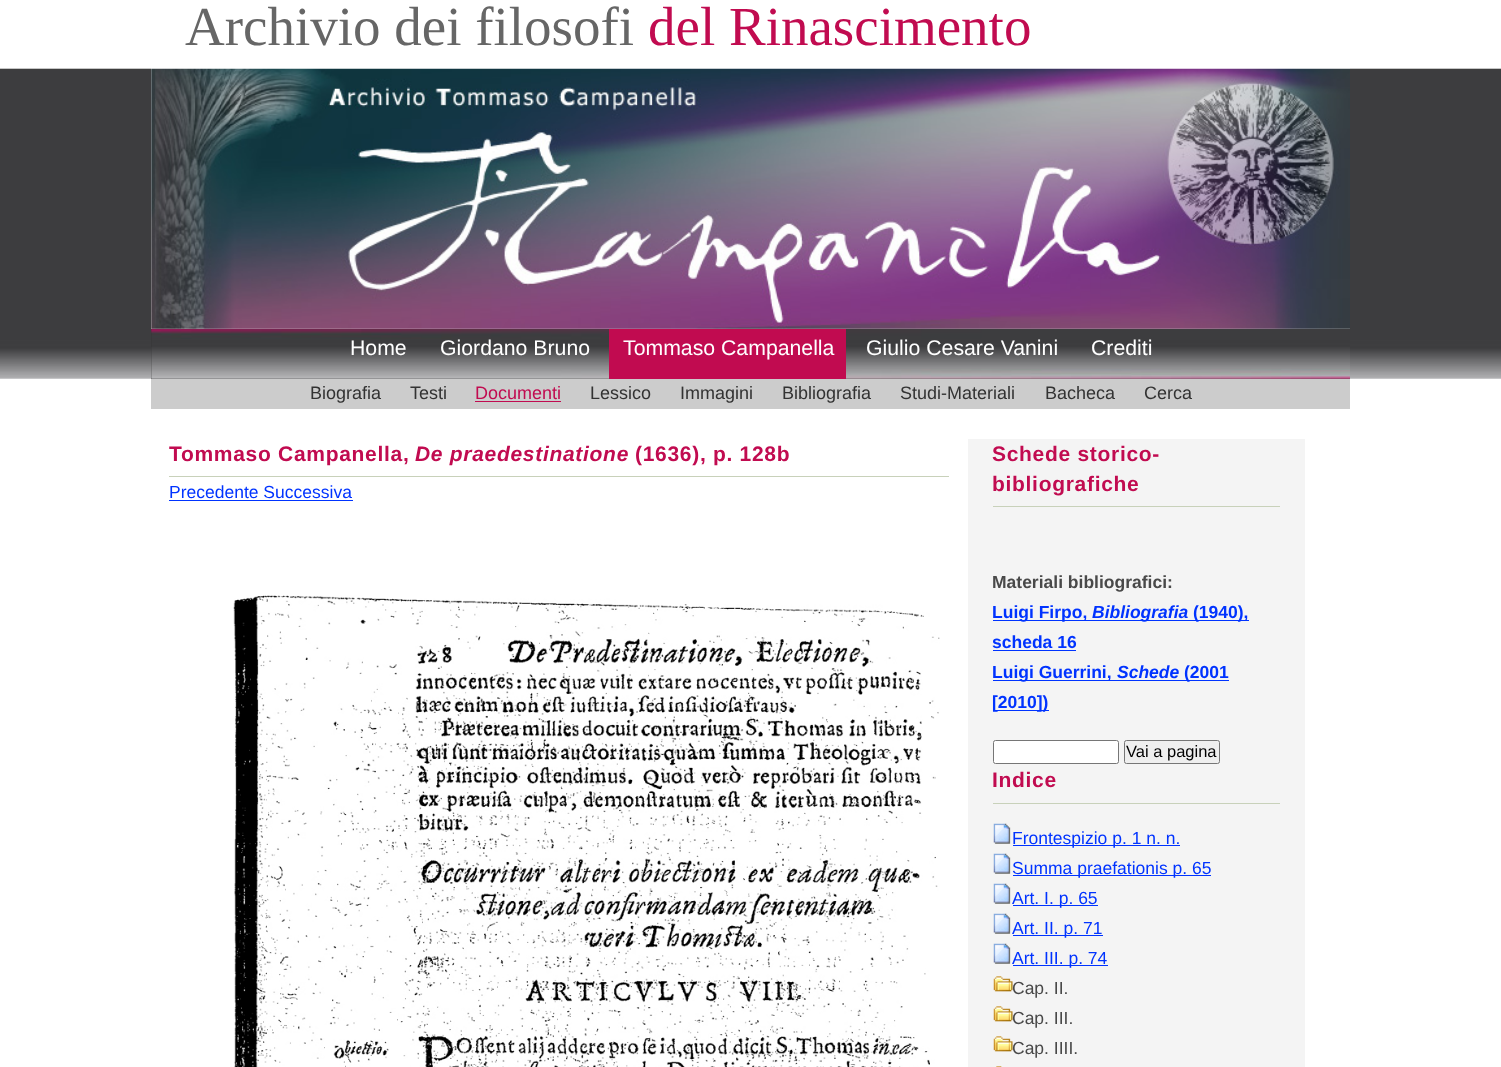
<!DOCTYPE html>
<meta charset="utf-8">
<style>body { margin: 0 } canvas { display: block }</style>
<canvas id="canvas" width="1501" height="1067"></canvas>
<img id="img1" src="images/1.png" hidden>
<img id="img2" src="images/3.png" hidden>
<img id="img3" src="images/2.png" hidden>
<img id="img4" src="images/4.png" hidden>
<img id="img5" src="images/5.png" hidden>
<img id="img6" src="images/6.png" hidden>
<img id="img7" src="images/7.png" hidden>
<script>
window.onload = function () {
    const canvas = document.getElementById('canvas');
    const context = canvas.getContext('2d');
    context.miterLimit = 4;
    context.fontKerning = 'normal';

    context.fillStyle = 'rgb(255, 255, 255)';
    context.fillRect(0, 0, 1501, 1067);
    context.drawImage(document.getElementById('img1'), 0, 68, 1501, 311);
    context.fillRect(151, 68, 1199, 311);
    context.fillStyle = 'rgb(51, 51, 51)';
    context.fillRect(151, 329, 1199, 50);
    context.drawImage(document.getElementById('img2'), 151, 328, 1199, 51);
    context.drawImage(document.getElementById('img3'), 151, 68, 1199, 261);
    context.fillStyle = 'rgb(193, 11, 80)';
    context.fillRect(609, 329, 237, 50);
    context.fillStyle = 'rgb(204, 204, 204)';
    context.fillRect(151, 379, 1199, 30);
    context.fillStyle = 'rgb(193, 11, 80)';
    context.fillRect(475, 401, 86, 1);
    context.fillStyle = 'rgb(200, 209, 186)';
    context.fillRect(169, 476, 780, 1);
    context.fillStyle = 'rgb(0, 51, 255)';
    context.fillRect(169, 500, 184, 1);
    context.drawImage(document.getElementById('img4'), 233, 595, 707, 472);
    context.fillStyle = 'rgb(244, 244, 244)';
    context.fillRect(968, 439, 337, 628);
    context.fillStyle = 'rgb(200, 209, 186)';
    context.fillRect(993, 506, 287, 1);
    context.fillStyle = 'rgb(0, 51, 255)';
    context.fillRect(993, 620, 256, 1);
    context.fillRect(993, 650, 83, 1);
    context.fillRect(993, 680, 236, 1);
    context.fillRect(993, 710, 56, 1);
    context.fillStyle = 'rgb(255, 255, 255)';
    context.beginPath();
    context.roundRect(993.5, 740.5, 125, 23, 2);
    context.fill();
    context.strokeStyle = 'rgb(118, 118, 118)';
    context.stroke();
    context.fillStyle = 'rgb(239, 239, 239)';
    context.beginPath();
    context.roundRect(1124.5, 740.5, 95, 23, 2);
    context.fill();
    context.stroke();
    context.fillStyle = 'rgb(200, 209, 186)';
    context.fillRect(993, 803, 287, 1);
    context.drawImage(document.getElementById('img5'), 993, 823, 18, 21);
    context.fillStyle = 'rgb(0, 51, 255)';
    context.fillRect(1013, 845, 167, 1);
    context.drawImage(document.getElementById('img5'), 993, 853, 18, 21);
    context.fillRect(1013, 875, 198, 1);
    context.drawImage(document.getElementById('img5'), 993, 883, 18, 21);
    context.fillRect(1013, 905, 85, 1);
    context.drawImage(document.getElementById('img5'), 993, 913, 18, 21);
    context.fillRect(1013, 935, 90, 1);
    context.drawImage(document.getElementById('img5'), 993, 943, 18, 21);
    context.fillRect(1013, 965, 95, 1);
    context.drawImage(document.getElementById('img6'), 993, 976, 20, 16);
    context.drawImage(document.getElementById('img6'), 993, 1006, 20, 16);
    context.drawImage(document.getElementById('img6'), 993, 1036, 20, 16);
    context.drawImage(document.getElementById('img7'), 996, 1066, 6, 1);
    context.font = '55px Liberation Serif';
    context.fillStyle = 'rgb(102, 102, 102)';
    context.fillText('Archivio dei filosofi', 185, 45);
    context.fillStyle = 'rgb(193, 11, 80)';
    context.fillText('del Rinascimento', 648, 45);
    context.font = '21.25px Liberation Sans';
    context.fillStyle = 'rgb(255, 255, 255)';
    context.fillText('Home', 350, 355);
    context.fillText('Giordano Bruno', 440, 355);
    context.fillText('Tommaso Campanella', 623, 355);
    context.fillText('Giulio Cesare Vanini', 866, 355);
    context.fillText('Crediti', 1091, 355);
    context.font = '18px Liberation Sans';
    context.fillStyle = 'rgb(51, 51, 51)';
    context.fillText('Biografia', 310, 399);
    context.fillText('Testi', 410, 399);
    context.fillStyle = 'rgb(193, 11, 80)';
    context.fillText('Documenti', 475, 399);
    context.fillStyle = 'rgb(51, 51, 51)';
    context.fillText('Lessico', 590, 399);
    context.fillText('Immagini', 680, 399);
    context.fillText('Bibliografia', 782, 399);
    context.fillText('Studi-Materiali', 900, 399);
    context.fillText('Bacheca', 1045, 399);
    context.fillText('Cerca', 1144, 399);
    context.letterSpacing = '0.7px';
    context.font = 'bold 21px Liberation Sans';
    context.fillStyle = 'rgb(193, 11, 80)';
    context.fillText('Tommaso Campanella,', 169, 461);
    context.font = 'italic bold 21px Liberation Sans';
    context.fillText('De praedestinatione', 415, 461);
    context.font = 'bold 21px Liberation Sans';
    context.fillText('(1636), p. 128b', 635, 461);
    context.letterSpacing = '0px';
    context.font = '17.5px Liberation Sans';
    context.fillStyle = 'rgb(0, 51, 255)';
    context.fillText('Precedente Successiva', 169, 498);
    context.letterSpacing = '0.7px';
    context.font = 'bold 21px Liberation Sans';
    context.fillStyle = 'rgb(193, 11, 80)';
    context.fillText('Schede storico-', 992, 461);
    context.fillText('bibliografiche', 992, 491);
    context.letterSpacing = '0px';
    context.font = 'bold 17.5px Liberation Sans';
    context.fillStyle = 'rgb(73, 73, 73)';
    context.fillText('Materiali bibliografici:', 992, 588);
    context.fillStyle = 'rgb(0, 51, 255)';
    context.fillText('Luigi Firpo,', 992, 618);
    context.font = 'italic bold 17.5px Liberation Sans';
    context.fillText('Bibliografia', 1092, 618);
    context.font = 'bold 17.5px Liberation Sans';
    context.fillText('(1940),', 1193, 618);
    context.fillText('scheda 16', 992, 648);
    context.fillText('Luigi Guerrini,', 992, 678);
    context.font = 'italic bold 17.5px Liberation Sans';
    context.fillText('Schede', 1117, 678);
    context.font = 'bold 17.5px Liberation Sans';
    context.fillText('(2001', 1184, 678);
    context.fillText('[2010])', 992, 708);
    context.font = '16.5px Liberation Sans';
    context.fillStyle = 'rgb(0, 0, 0)';
    context.fillText('Vai a pagina', 1126, 757);
    context.letterSpacing = '0.7px';
    context.font = 'bold 21px Liberation Sans';
    context.fillStyle = 'rgb(193, 11, 80)';
    context.fillText('Indice', 992, 787);
    context.letterSpacing = '0px';
    context.font = '17.5px Liberation Sans';
    context.fillStyle = 'rgb(0, 51, 255)';
    context.fillText('Frontespizio p. 1 n. n.', 1012, 844);
    context.fillText('Summa praefationis p. 65', 1012, 874);
    context.fillText('Art. I. p. 65', 1012, 904);
    context.fillText('Art. II. p. 71', 1012, 934);
    context.fillText('Art. III. p. 74', 1012, 964);
    context.fillStyle = 'rgb(73, 73, 73)';
    context.fillText('Cap. II.', 1012, 994);
    context.fillText('Cap. III.', 1012, 1024);
    context.fillText('Cap. IIII.', 1012, 1054);
};
</script>
